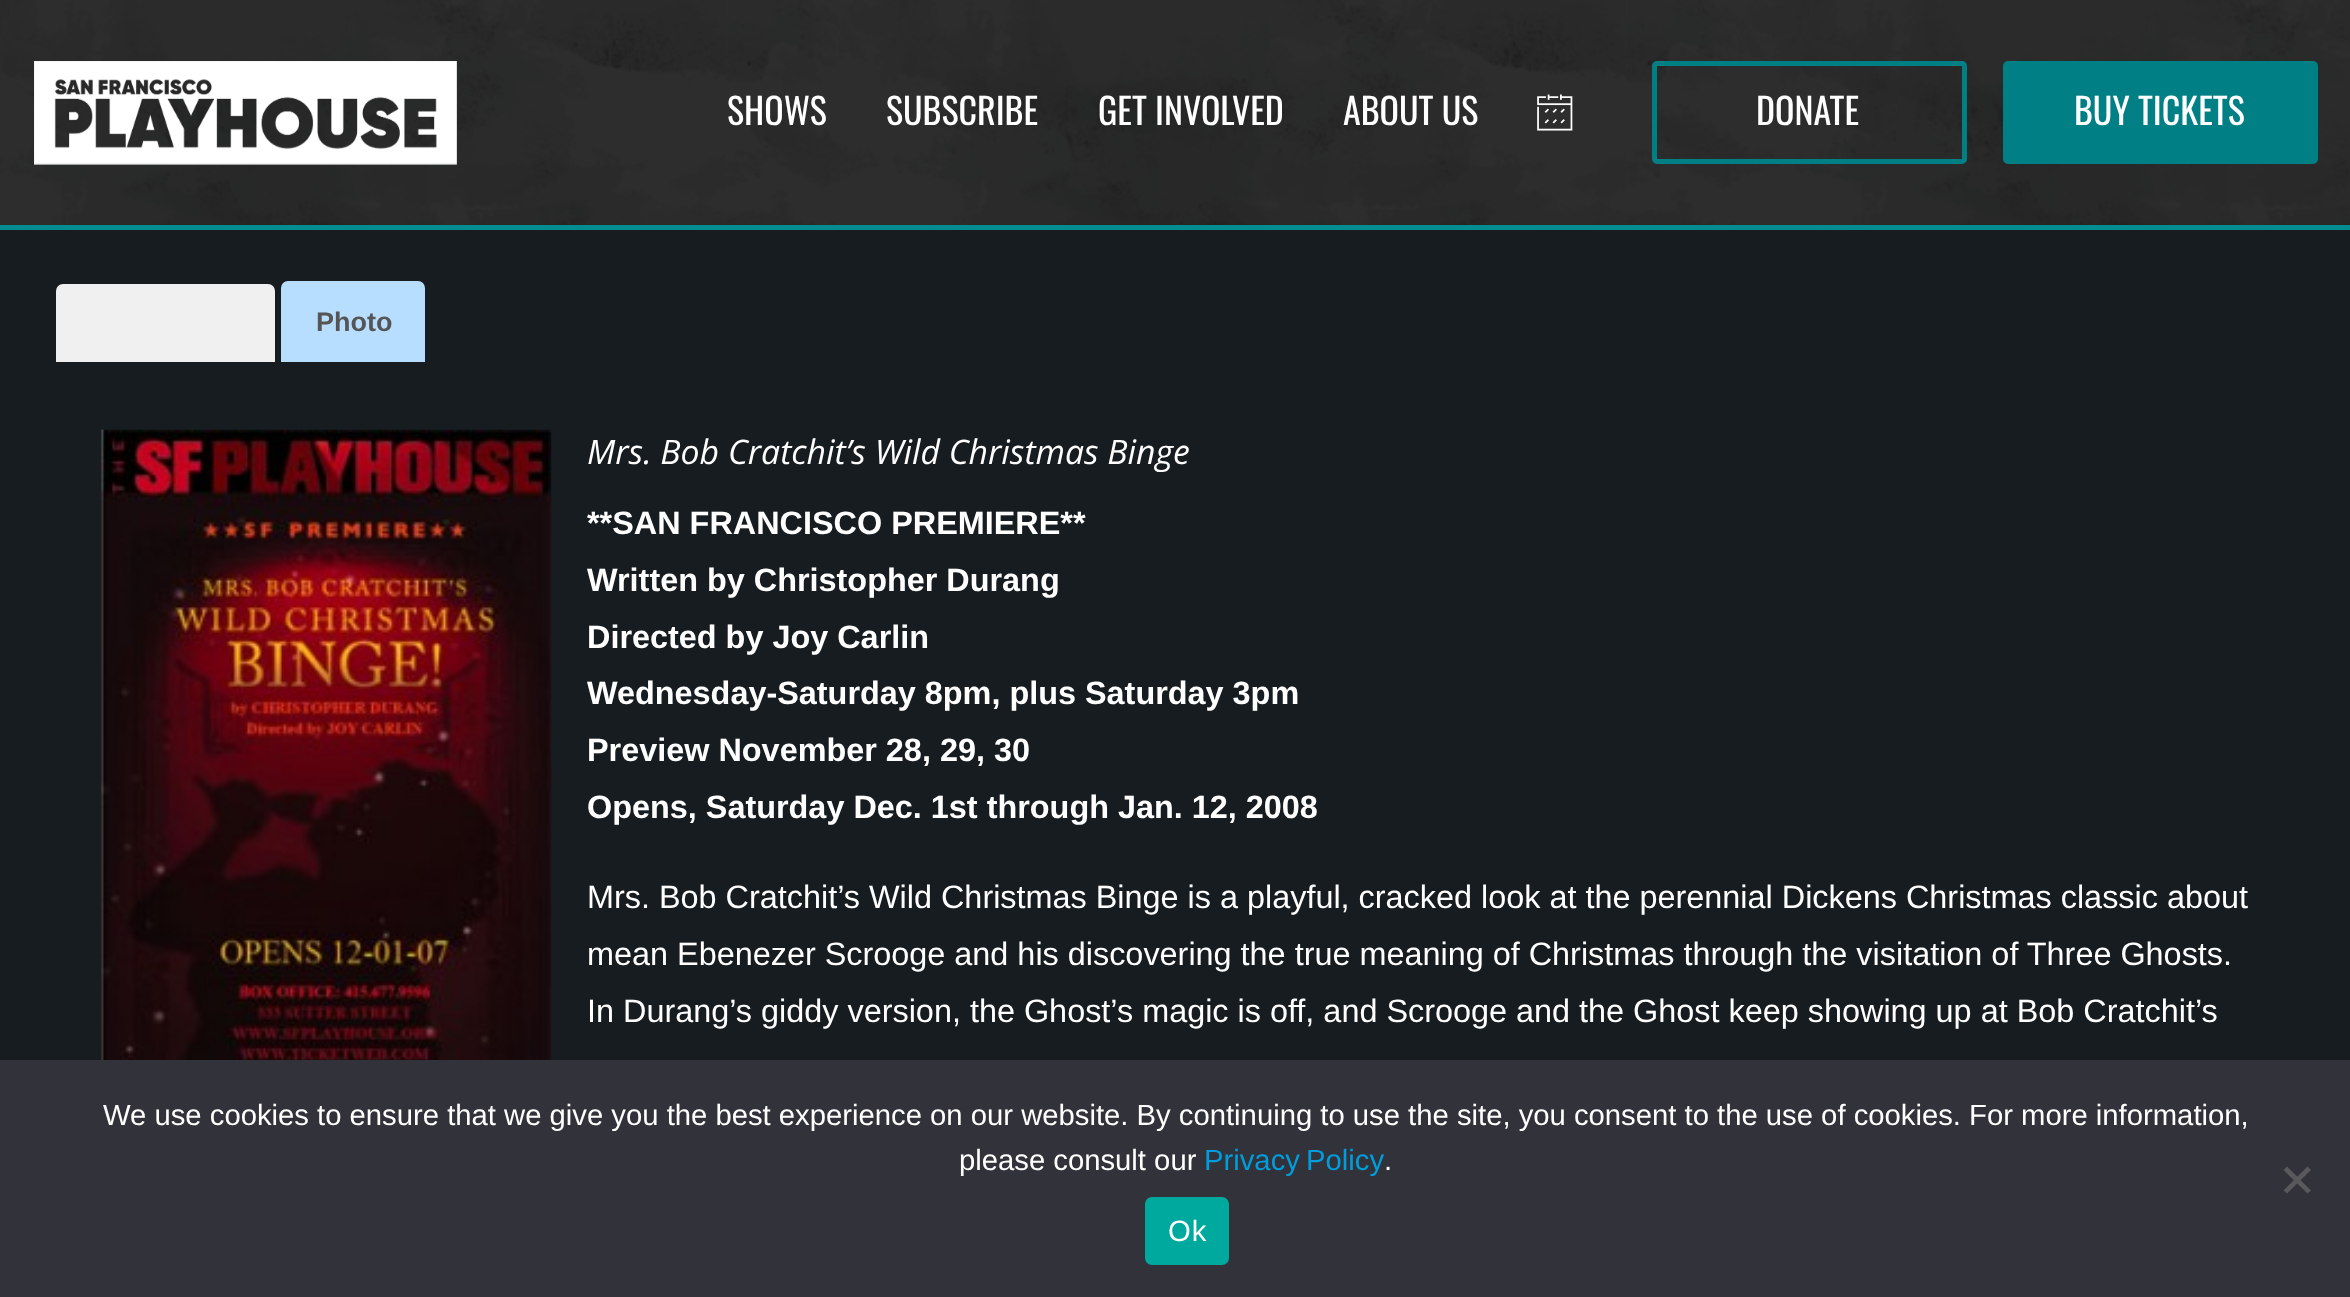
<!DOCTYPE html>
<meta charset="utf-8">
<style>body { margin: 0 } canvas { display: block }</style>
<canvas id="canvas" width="2350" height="1297"></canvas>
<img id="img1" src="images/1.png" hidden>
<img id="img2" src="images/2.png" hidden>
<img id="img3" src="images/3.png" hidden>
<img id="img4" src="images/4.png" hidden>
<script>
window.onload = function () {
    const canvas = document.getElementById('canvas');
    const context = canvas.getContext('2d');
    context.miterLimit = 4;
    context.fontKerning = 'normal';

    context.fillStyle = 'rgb(23, 28, 32)';
    context.fillRect(0, 0, 2350, 1297);
    context.fillStyle = 'rgb(0, 140, 144)';
    context.fillRect(0, 225, 2350, 5);
    context.drawImage(document.getElementById('img1'), 0, 0, 2350, 225);
    context.drawImage(document.getElementById('img2'), 34, 61, 423, 104);
    context.drawImage(document.getElementById('img3'), 1537, 94, 36, 37);
    context.beginPath();
    context.roundRect(1654.5, 63.5, 310, 98, 2.5);
    context.strokeStyle = 'rgb(0, 128, 133)';
    context.lineWidth = 5;
    context.stroke();
    context.fillStyle = 'rgb(0, 128, 133)';
    context.beginPath();
    context.roundRect(2003, 61, 315, 103, 5);
    context.fill();
    context.fillStyle = 'rgb(240, 240, 240)';
    context.beginPath();
    context.roundRect(56, 284, 219, 78, [7, 7, 0, 0]);
    context.fill();
    context.fillStyle = 'rgb(184, 222, 255)';
    context.beginPath();
    context.roundRect(281, 281, 144, 81, [7, 7, 0, 0]);
    context.fill();
    context.drawImage(document.getElementById('img4'), 101, 429, 451, 631);
    context.fillStyle = 'rgb(50, 50, 58)';
    context.fillRect(0, 1060, 2350, 237);
    context.fillStyle = 'rgb(89, 89, 93)';
    context.beginPath();
    context.moveTo(2307.5, 1166.5);
    context.lineTo(2311, 1170);
    context.lineTo(2287, 1193.5);
    context.lineTo(2283.5, 1190.5);
    context.closePath();
    context.fill();
    context.beginPath();
    context.moveTo(2283.5, 1170);
    context.lineTo(2287, 1166.5);
    context.lineTo(2311, 1190.5);
    context.lineTo(2307.5, 1193.5);
    context.closePath();
    context.fill();
    context.fillStyle = 'rgb(0, 169, 157)';
    context.beginPath();
    context.roundRect(1145, 1197, 84, 68, 7);
    context.fill();
    context.font = '36px Oswald';
    context.fillStyle = 'rgb(255, 255, 255)';
    context.fillText('SHOWS', 727, 125);
    context.fillText('SUBSCRIBE', 886, 125);
    context.fillText('GET INVOLVED', 1098, 125);
    context.fillText('ABOUT US', 1343, 125);
    context.fillText('DONATE', 1756, 125);
    context.fillText('BUY TICKETS', 2074, 125);
    context.font = 'bold 27px Liberation Sans';
    context.fillStyle = 'rgb(85, 85, 85)';
    context.fillText('Photo', 316, 331);
    context.font = 'italic 33.75px Open Sans';
    context.fillStyle = 'rgb(255, 255, 255)';
    context.fillText('Mrs. Bob Cratchit’s Wild Christmas Binge', 587, 464);
    context.font = 'bold 32.4px Liberation Sans';
    context.fillText('**SAN FRANCISCO PREMIERE**', 587, 534);
    context.fillText('Written by Christopher Durang', 587, 591);
    context.fillText('Directed by Joy Carlin', 587, 648);
    context.fillText('Wednesday-Saturday 8pm, plus Saturday 3pm', 587, 704);
    context.fillText('Preview November 28, 29, 30', 587, 761);
    context.fillText('Opens, Saturday Dec. 1st through Jan. 12, 2008', 587, 818);
    context.font = '32.4px Liberation Sans';
    context.fillText('Mrs. Bob Cratchit’s Wild Christmas Binge is a playful, cracked look at the perennial Dickens Christmas classic about', 587, 908);
    context.fillText('mean Ebenezer Scrooge and his discovering the true meaning of Christmas through the visitation of Three Ghosts.', 587, 965);
    context.fillText('In Durang’s giddy version, the Ghost’s magic is off, and Scrooge and the Ghost keep showing up at Bob Cratchit’s', 587, 1022);
    context.font = '29.25px Liberation Sans';
    context.fillText('We use cookies to ensure that we give you the best experience on our website. By continuing to use the site, you consent to the use of cookies. For more information,', 103, 1125);
    context.fillText('please consult our', 959, 1170);
    context.wordSpacing = '-2px';
    context.fillStyle = 'rgb(0, 157, 220)';
    context.fillText('Privacy Policy', 1204, 1170);
    context.wordSpacing = '0px';
    context.fillStyle = 'rgb(255, 255, 255)';
    context.fillText('.', 1384, 1170);
    context.letterSpacing = '1px';
    context.fillText('Ok', 1168, 1241);
};
</script>
